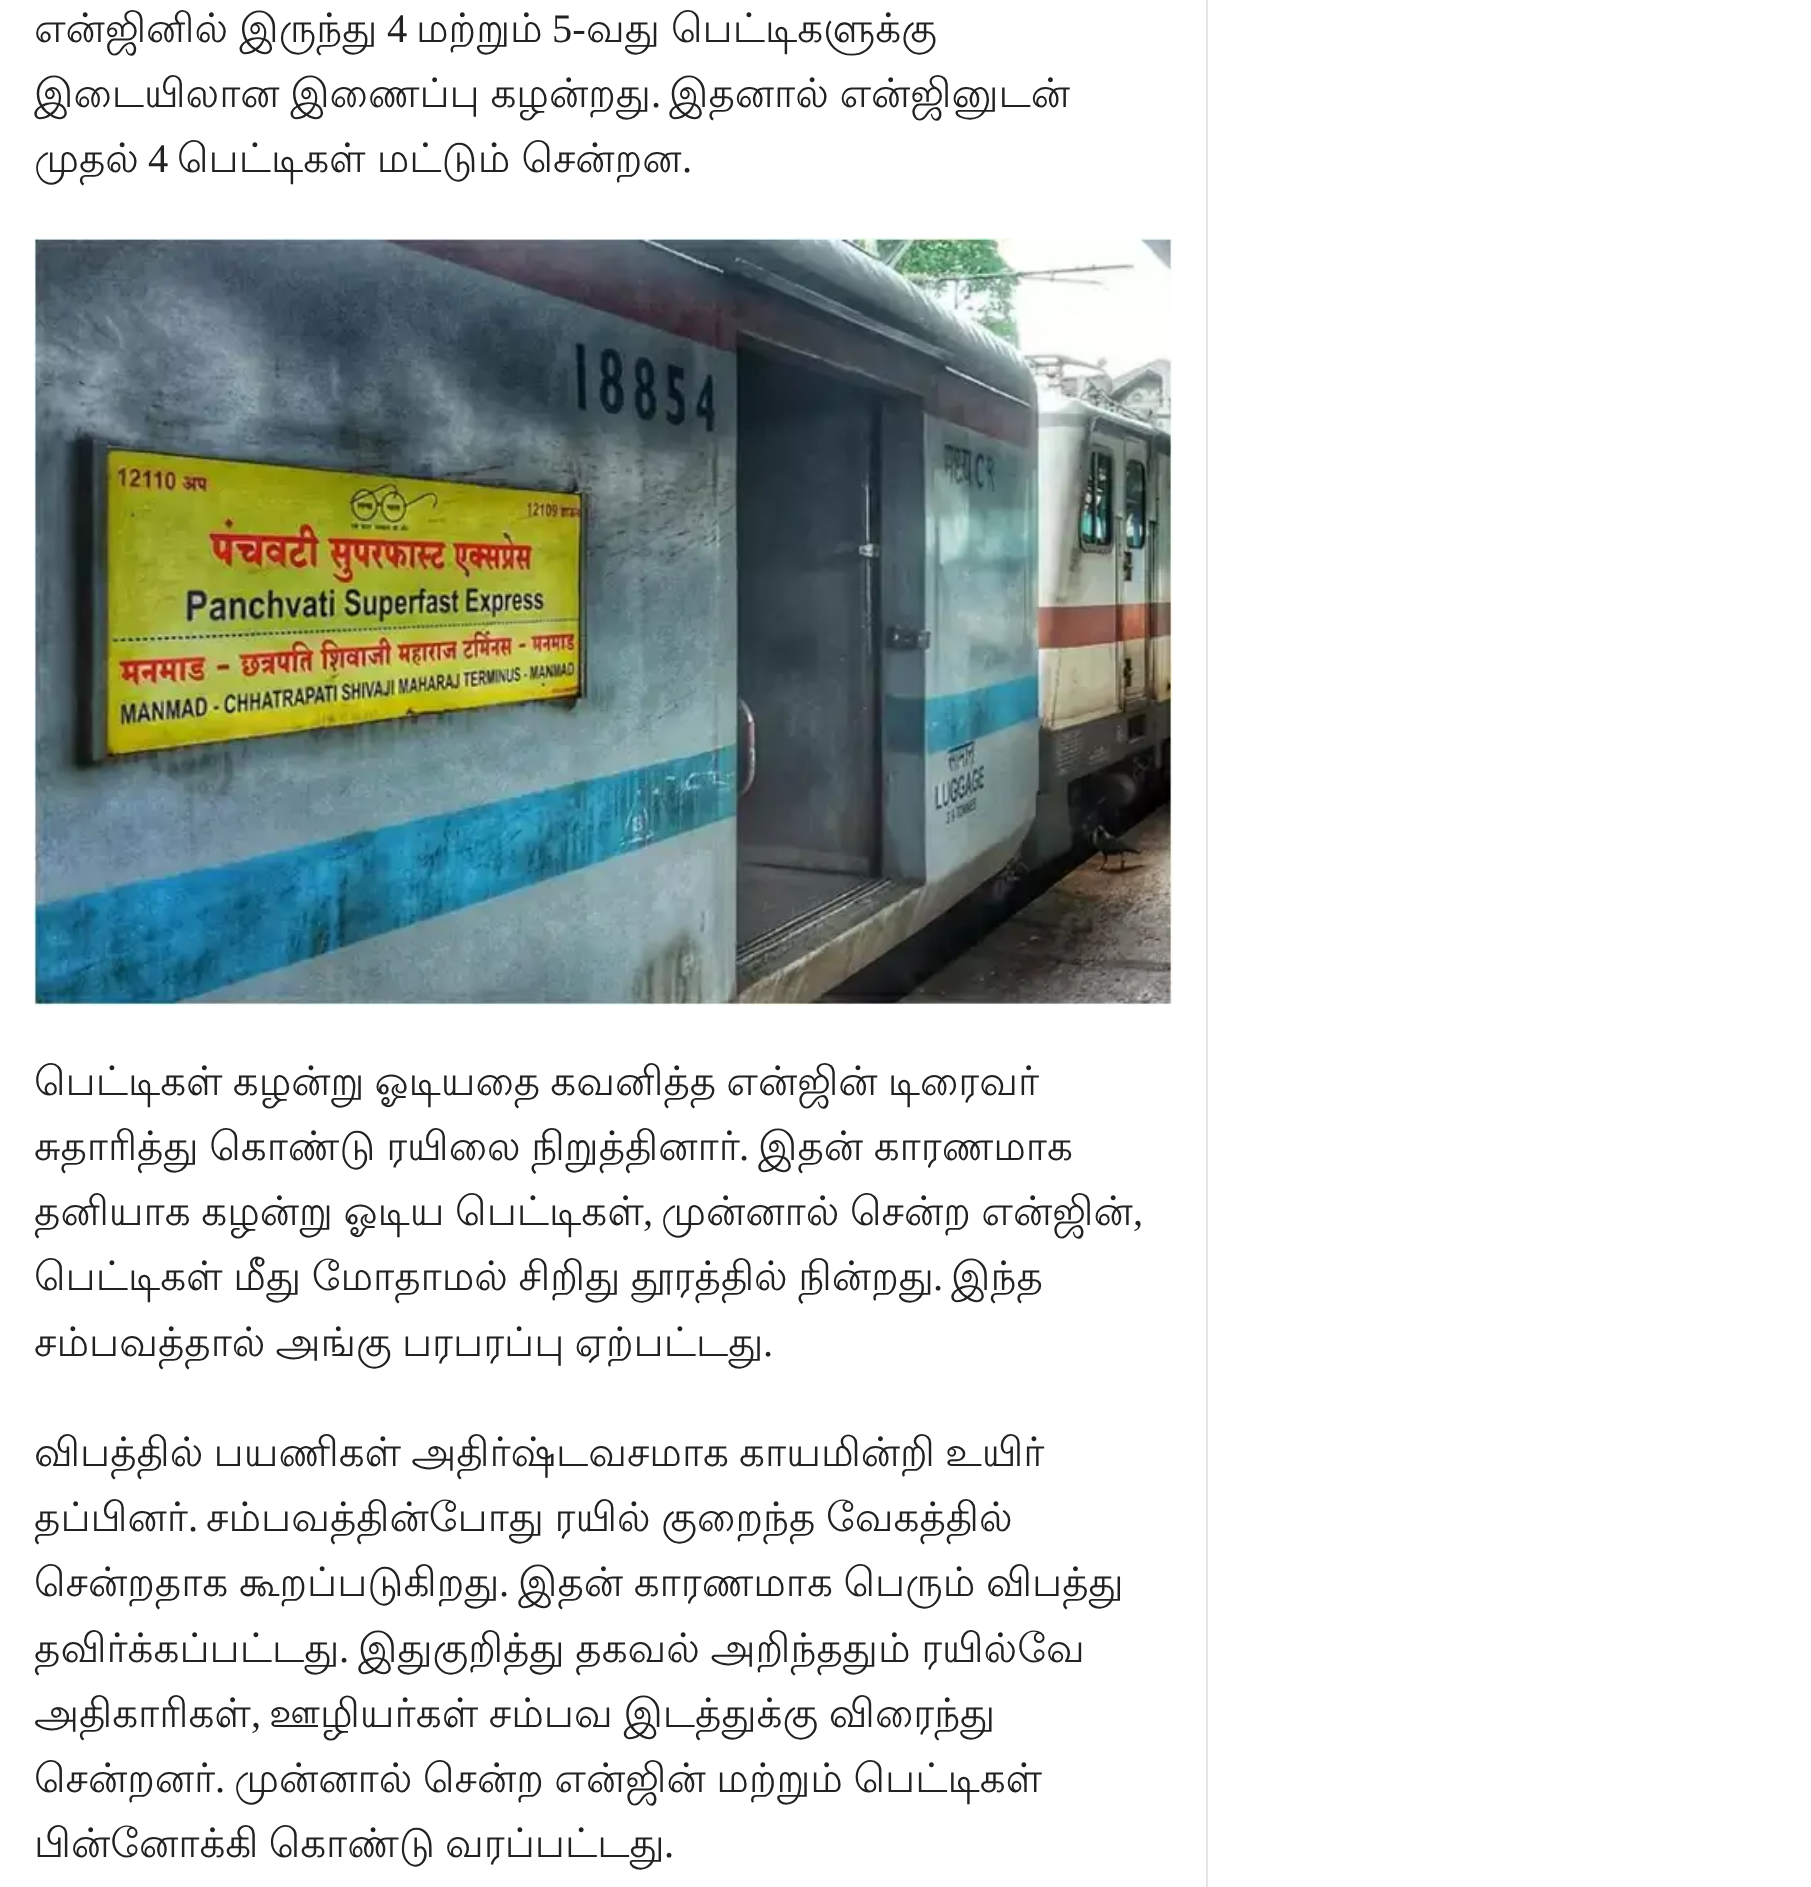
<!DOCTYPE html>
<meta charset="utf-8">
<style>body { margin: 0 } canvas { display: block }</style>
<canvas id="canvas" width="1811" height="1887"></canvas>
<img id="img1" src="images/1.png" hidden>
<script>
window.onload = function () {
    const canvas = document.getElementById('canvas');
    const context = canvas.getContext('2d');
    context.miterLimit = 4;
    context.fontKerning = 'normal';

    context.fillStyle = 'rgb(255, 255, 255)';
    context.fillRect(0, 0, 1811, 1887);
    context.fillStyle = 'rgb(229, 229, 229)';
    context.fillRect(1206, 0, 2, 1887);
    context.drawImage(document.getElementById('img1'), 33, 238, 1140, 768);
    context.wordSpacing = '-1px';
    context.font = '40.5px Lohit Tamil';
    context.fillStyle = 'rgb(34, 34, 34)';
    context.fillText('என்ஜினில் இருந்து', 34, 42);
    context.wordSpacing = '0px';
    context.font = '40.5px Liberation Serif';
    context.fillText('4', 387, 42);
    context.font = '40.5px Lohit Tamil';
    context.fillText('மற்றும்', 416, 42);
    context.font = '40.5px Liberation Serif';
    context.fillText('5-', 552, 42);
    context.wordSpacing = '-1px';
    context.font = '40.5px Lohit Tamil';
    context.fillText('வது பெட்டிகளுக்கு', 586, 42);
    context.wordSpacing = '-1.5px';
    context.fillText('இடையிலான இணைப்பு கழன்றது', 34, 107);
    context.wordSpacing = '0px';
    context.font = '40.5px Liberation Serif';
    context.fillText('.', 651, 107);
    context.wordSpacing = '-1.5px';
    context.font = '40.5px Lohit Tamil';
    context.fillText('இதனால் என்ஜினுடன்', 669, 107);
    context.wordSpacing = '0px';
    context.fillText('முதல்', 34, 172);
    context.font = '40.5px Liberation Serif';
    context.fillText('4', 148, 172);
    context.wordSpacing = '-1px';
    context.font = '40.5px Lohit Tamil';
    context.fillText('பெட்டிகள் மட்டும் சென்றன', 177, 172);
    context.wordSpacing = '0px';
    context.font = '40.5px Liberation Serif';
    context.fillText('.', 682, 172);
    context.wordSpacing = '-2px';
    context.font = '40.5px Lohit Tamil';
    context.fillText('பெட்டிகள் கழன்று ஓடியதை கவனித்த என்ஜின் டிரைவர்', 34, 1095);
    context.wordSpacing = '-1.5px';
    context.fillText('சுதாரித்து கொண்டு ரயிலை நிறுத்தினார்', 34, 1160);
    context.wordSpacing = '0px';
    context.font = '40.5px Liberation Serif';
    context.fillText('.', 739, 1160);
    context.wordSpacing = '-1.5px';
    context.font = '40.5px Lohit Tamil';
    context.fillText('இதன் காரணமாக', 758, 1160);
    context.fillText('தனியாக கழன்று ஓடிய பெட்டிகள்', 34, 1225);
    context.wordSpacing = '0px';
    context.font = '40.5px Liberation Serif';
    context.fillText(',', 643, 1225);
    context.wordSpacing = '-1.5px';
    context.font = '40.5px Lohit Tamil';
    context.fillText('முன்னால் சென்ற என்ஜின்', 661, 1225);
    context.wordSpacing = '0px';
    context.font = '40.5px Liberation Serif';
    context.fillText(',', 1133, 1225);
    context.wordSpacing = '-1.5px';
    context.font = '40.5px Lohit Tamil';
    context.fillText('பெட்டிகள் மீது மோதாமல் சிறிது தூரத்தில் நின்றது', 34, 1290);
    context.wordSpacing = '0px';
    context.font = '40.5px Liberation Serif';
    context.fillText('.', 933, 1290);
    context.font = '40.5px Lohit Tamil';
    context.fillText('இந்த', 951, 1290);
    context.wordSpacing = '-2px';
    context.fillText('சம்பவத்தால் அங்கு பரபரப்பு ஏற்பட்டது', 34, 1356);
    context.wordSpacing = '0px';
    context.font = '40.5px Liberation Serif';
    context.fillText('.', 763, 1356);
    context.wordSpacing = '-2px';
    context.font = '40.5px Lohit Tamil';
    context.fillText('விபத்தில் பயணிகள் அதிர்ஷ்டவசமாக காயமின்றி உயிர்', 34, 1466);
    context.wordSpacing = '0px';
    context.fillText('தப்பினர்', 34, 1531);
    context.font = '40.5px Liberation Serif';
    context.fillText('.', 188, 1531);
    context.wordSpacing = '-1.5px';
    context.font = '40.5px Lohit Tamil';
    context.fillText('சம்பவத்தின்போது ரயில் குறைந்த வேகத்தில்', 206, 1531);
    context.fillText('சென்றதாக கூறப்படுகிறது', 34, 1596);
    context.wordSpacing = '0px';
    context.font = '40.5px Liberation Serif';
    context.fillText('.', 499, 1596);
    context.wordSpacing = '-1.5px';
    context.font = '40.5px Lohit Tamil';
    context.fillText('இதன் காரணமாக பெரும் விபத்து', 518, 1596);
    context.wordSpacing = '0px';
    context.fillText('தவிர்க்கப்பட்டது', 34, 1662);
    context.font = '40.5px Liberation Serif';
    context.fillText('.', 339, 1662);
    context.wordSpacing = '-1.5px';
    context.font = '40.5px Lohit Tamil';
    context.fillText('இதுகுறித்து தகவல் அறிந்ததும் ரயில்வே', 358, 1662);
    context.wordSpacing = '0px';
    context.fillText('அதிகாரிகள்', 34, 1727);
    context.font = '40.5px Liberation Serif';
    context.fillText(',', 251, 1727);
    context.wordSpacing = '-1.5px';
    context.font = '40.5px Lohit Tamil';
    context.fillText('ஊழியர்கள் சம்பவ இடத்துக்கு விரைந்து', 269, 1727);
    context.wordSpacing = '0px';
    context.fillText('சென்றனர்', 34, 1792);
    context.font = '40.5px Liberation Serif';
    context.fillText('.', 215, 1792);
    context.wordSpacing = '-1.5px';
    context.font = '40.5px Lohit Tamil';
    context.fillText('முன்னால் சென்ற என்ஜின் மற்றும் பெட்டிகள்', 234, 1792);
    context.wordSpacing = '-2px';
    context.fillText('பின்னோக்கி கொண்டு வரப்பட்டது', 34, 1857);
    context.wordSpacing = '0px';
    context.font = '40.5px Liberation Serif';
    context.fillText('.', 664, 1857);
};
</script>
